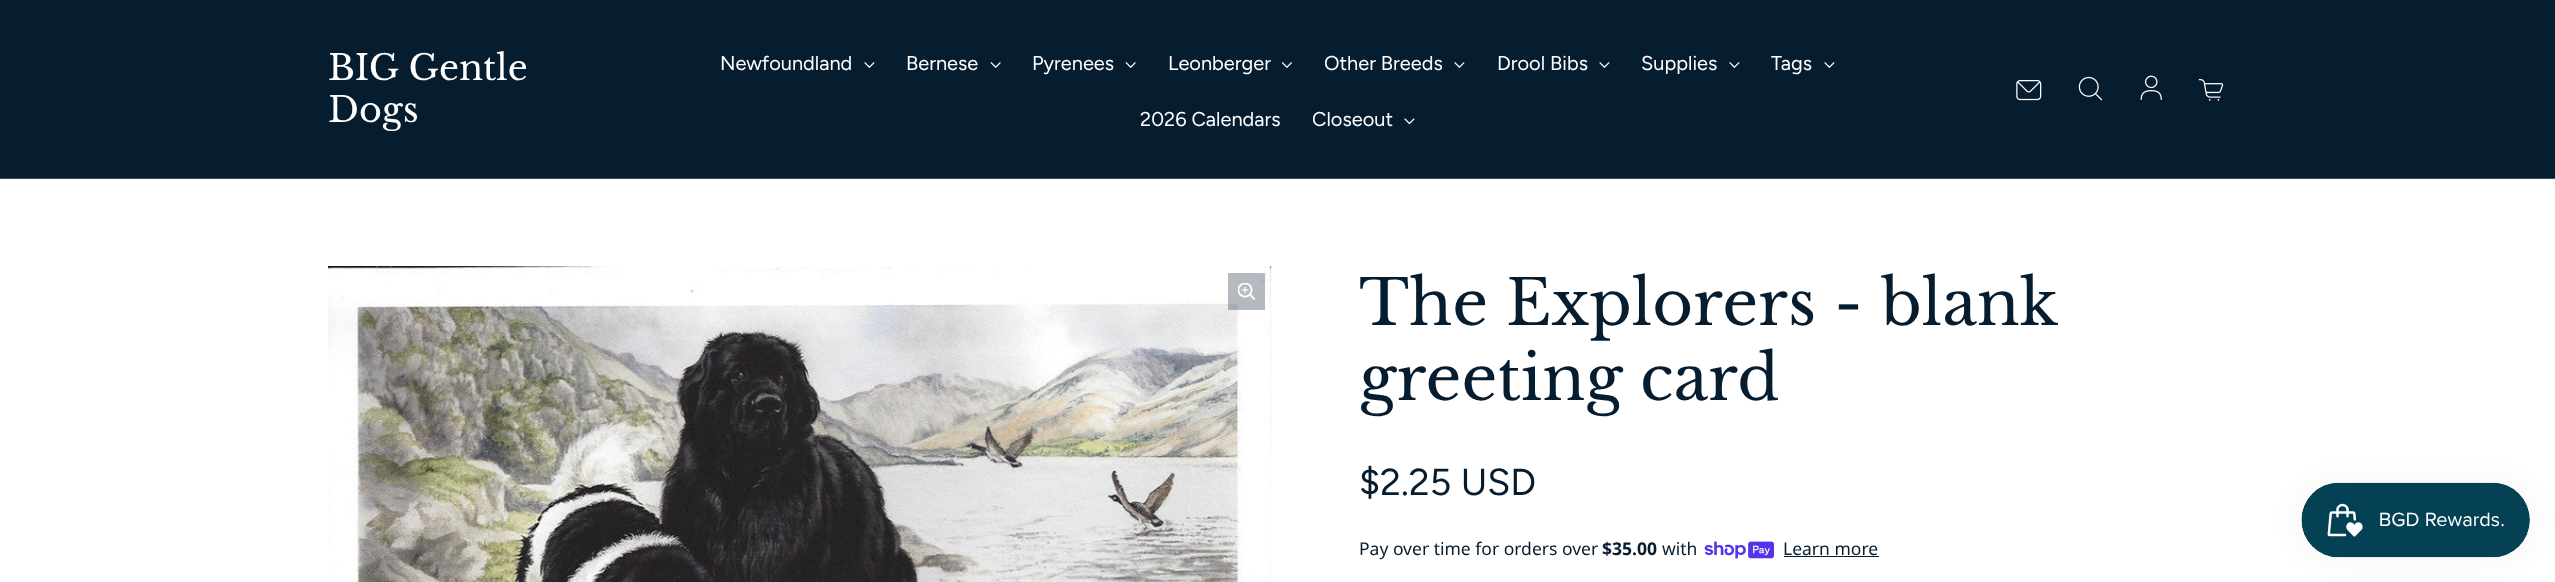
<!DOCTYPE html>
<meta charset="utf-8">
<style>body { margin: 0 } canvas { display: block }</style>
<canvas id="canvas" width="2555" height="582"></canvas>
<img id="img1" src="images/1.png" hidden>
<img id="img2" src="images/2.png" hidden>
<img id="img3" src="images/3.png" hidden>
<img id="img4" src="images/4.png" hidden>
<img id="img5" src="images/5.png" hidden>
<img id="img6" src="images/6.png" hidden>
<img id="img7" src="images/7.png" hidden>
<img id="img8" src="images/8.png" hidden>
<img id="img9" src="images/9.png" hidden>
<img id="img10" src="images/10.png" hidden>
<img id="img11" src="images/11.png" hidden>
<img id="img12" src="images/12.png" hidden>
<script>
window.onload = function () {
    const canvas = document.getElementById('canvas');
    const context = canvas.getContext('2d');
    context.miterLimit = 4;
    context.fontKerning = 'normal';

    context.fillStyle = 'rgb(255, 255, 255)';
    context.fillRect(0, 0, 2555, 582);
    context.fillStyle = 'rgb(6, 28, 47)';
    context.fillRect(0, 0, 2555, 178);
    context.fillStyle = 'rgb(56, 73, 89)';
    context.fillRect(0, 178, 2555, 1);
    context.drawImage(document.getElementById('img1'), 864, 62, 11, 6);
    context.drawImage(document.getElementById('img2'), 990, 62, 11, 6);
    context.drawImage(document.getElementById('img2'), 1125, 62, 11, 6);
    context.drawImage(document.getElementById('img3'), 1281, 62, 11, 6);
    context.drawImage(document.getElementById('img1'), 1454, 62, 11, 6);
    context.drawImage(document.getElementById('img1'), 1599, 62, 11, 6);
    context.drawImage(document.getElementById('img1'), 1729, 62, 11, 6);
    context.drawImage(document.getElementById('img1'), 1824, 62, 11, 6);
    context.drawImage(document.getElementById('img4'), 1404, 118, 11, 7);
    context.drawImage(document.getElementById('img5'), 2016, 80, 26, 21);
    context.drawImage(document.getElementById('img6'), 2078, 76, 25, 25);
    context.drawImage(document.getElementById('img7'), 2140, 75, 22, 25);
    context.drawImage(document.getElementById('img8'), 2198, 79, 26, 22);
    context.drawImage(document.getElementById('img9'), 328, 266, 944, 316);
    context.fillStyle = 'rgba(6, 28, 47, 0.3)';
    context.fillRect(1228, 273, 37, 37);
    context.drawImage(document.getElementById('img10'), 1238, 283, 18, 17);
    context.drawImage(document.getElementById('img11'), 1704, 541, 70, 18);
    context.fillStyle = 'rgb(6, 28, 47)';
    context.fillRect(1784, 556, 95, 1);
    context.fillStyle = 'rgba(0, 0, 0, 0.05)';
    context.filter = 'blur(15.5px)';
    context.beginPath();
    context.roundRect(2301, 483, 229, 75, 37.5);
    context.fill();
    context.filter = 'none';
    context.drawImage(document.getElementById('img12'), 2301, 482, 229, 76);
    context.font = '35px Libre Baskerville';
    context.fillStyle = 'rgb(255, 255, 255)';
    context.fillText('BIG Gentle', 328, 80);
    context.fillText('Dogs', 328, 122);
    context.font = '20px Figtree';
    context.fillText('Newfoundland', 720, 70);
    context.fillText('Bernese', 906, 70);
    context.fillText('Pyrenees', 1032, 70);
    context.fillText('Leonberger', 1168, 70);
    context.fillText('Other Breeds', 1324, 70);
    context.fillText('Drool Bibs', 1497, 70);
    context.fillText('Supplies', 1641, 70);
    context.fillText('Tags', 1771, 70);
    context.fillText('2026 Calendars', 1140, 126);
    context.fillText('Closeout', 1312, 126);
    context.font = '62.5px Libre Baskerville';
    context.fillStyle = 'rgb(6, 28, 47)';
    context.fillText('The Explorers - blank', 1359, 325);
    context.fillText('greeting card', 1359, 400);
    context.font = '37.5px Figtree';
    context.fillText('$2.25 USD', 1359, 495);
    context.font = '17.5px Noto Sans';
    context.fillText('Pay over time for orders over', 1359, 555);
    context.font = 'bold 17.5px Noto Sans';
    context.fillText('$35.00', 1602, 555);
    context.font = '17.5px Noto Sans';
    context.fillText('with', 1662, 555);
    context.fillText('Learn more', 1783, 555);
};
</script>
